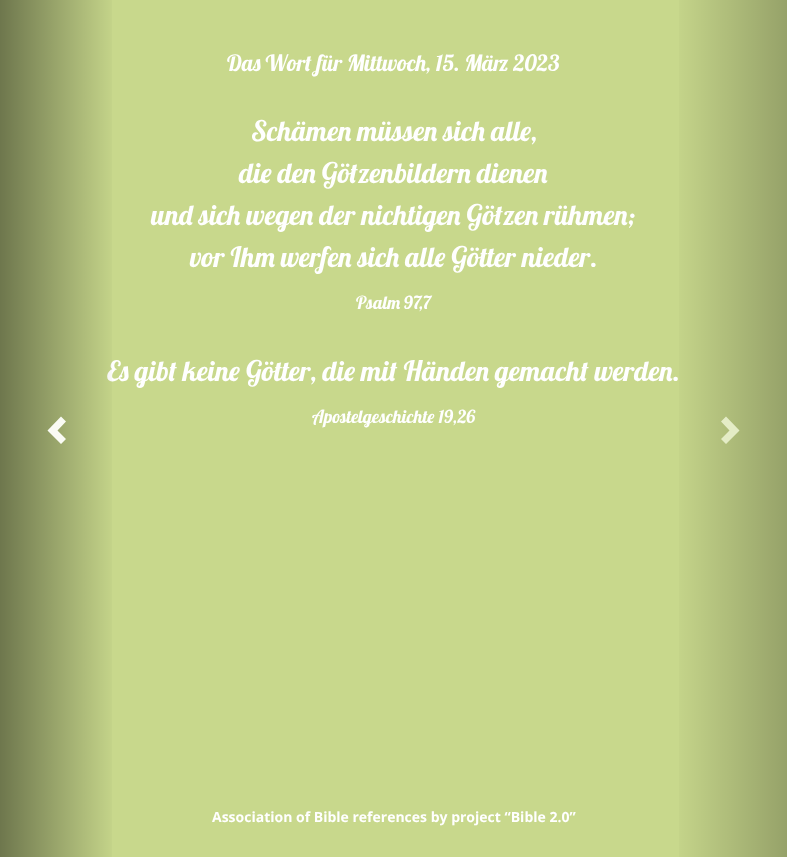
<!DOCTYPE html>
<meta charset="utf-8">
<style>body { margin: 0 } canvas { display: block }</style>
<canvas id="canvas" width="787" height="857"></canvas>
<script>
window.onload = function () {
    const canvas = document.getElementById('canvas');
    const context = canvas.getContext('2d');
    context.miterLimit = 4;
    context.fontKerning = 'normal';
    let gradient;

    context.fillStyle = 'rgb(200, 216, 140)';
    context.fillRect(0, 0, 787, 857);
    gradient = context.createLinearGradient(669, 429, 787, 429);
    gradient.addColorStop(0, 'rgba(0, 0, 0, 0)');
    gradient.addColorStop(1, 'rgba(0, 0, 0, 0.25)');
    context.fillStyle = gradient;
    context.fillRect(679, 0, 108, 857);
    context.fillStyle = 'rgb(228, 236, 198)';
    context.beginPath();
    context.moveTo(739.5, 430.5);
    context.lineTo(726, 444);
    context.lineTo(721, 439);
    context.lineTo(729.5, 430.5);
    context.lineTo(721, 421.5);
    context.lineTo(726, 416.5);
    context.closePath();
    context.fill();
    context.font = '22.4px Lobster';
    context.fillStyle = 'rgb(255, 255, 255)';
    context.fillText('Das Wort für Mittwoch, 15. März 2023', 227, 71);
    context.font = '28px Lobster';
    context.fillText('Schämen müssen sich alle,', 251, 141);
    context.fillText('die den Götzenbildern dienen', 239, 183);
    context.fillText('und sich wegen der nichtigen Götzen rühmen;', 151, 225);
    context.fillText('vor Ihm werfen sich alle Götter nieder.', 190, 267);
    context.font = '18px Lobster';
    context.fillText('Psalm 97,7', 356, 309);
    context.font = '28px Lobster';
    context.fillText('Es gibt keine Götter, die mit Händen gemacht werden.', 107, 381);
    gradient = context.createLinearGradient(0, 429, 118, 429);
    gradient.addColorStop(0, 'rgba(0, 0, 0, 0.45)');
    gradient.addColorStop(1, 'rgba(0, 0, 0, 0)');
    context.fillStyle = gradient;
    context.fillRect(0, 0, 112, 857);
    context.fillStyle = 'rgb(250, 251, 244)';
    context.beginPath();
    context.moveTo(66, 421.5);
    context.lineTo(57.5, 430.5);
    context.lineTo(66, 439);
    context.lineTo(61, 444);
    context.lineTo(47.5, 430.5);
    context.lineTo(61, 416.5);
    context.closePath();
    context.fill();
    context.font = '18px Lobster';
    context.fillStyle = 'rgb(255, 255, 255)';
    context.fillText('Apostelgeschichte 19,26', 312, 423);
    context.font = 'bold 14px Open Sans';
    context.fillText('Association of Bible references by project “Bible 2.0”', 212, 822);
};
</script>
